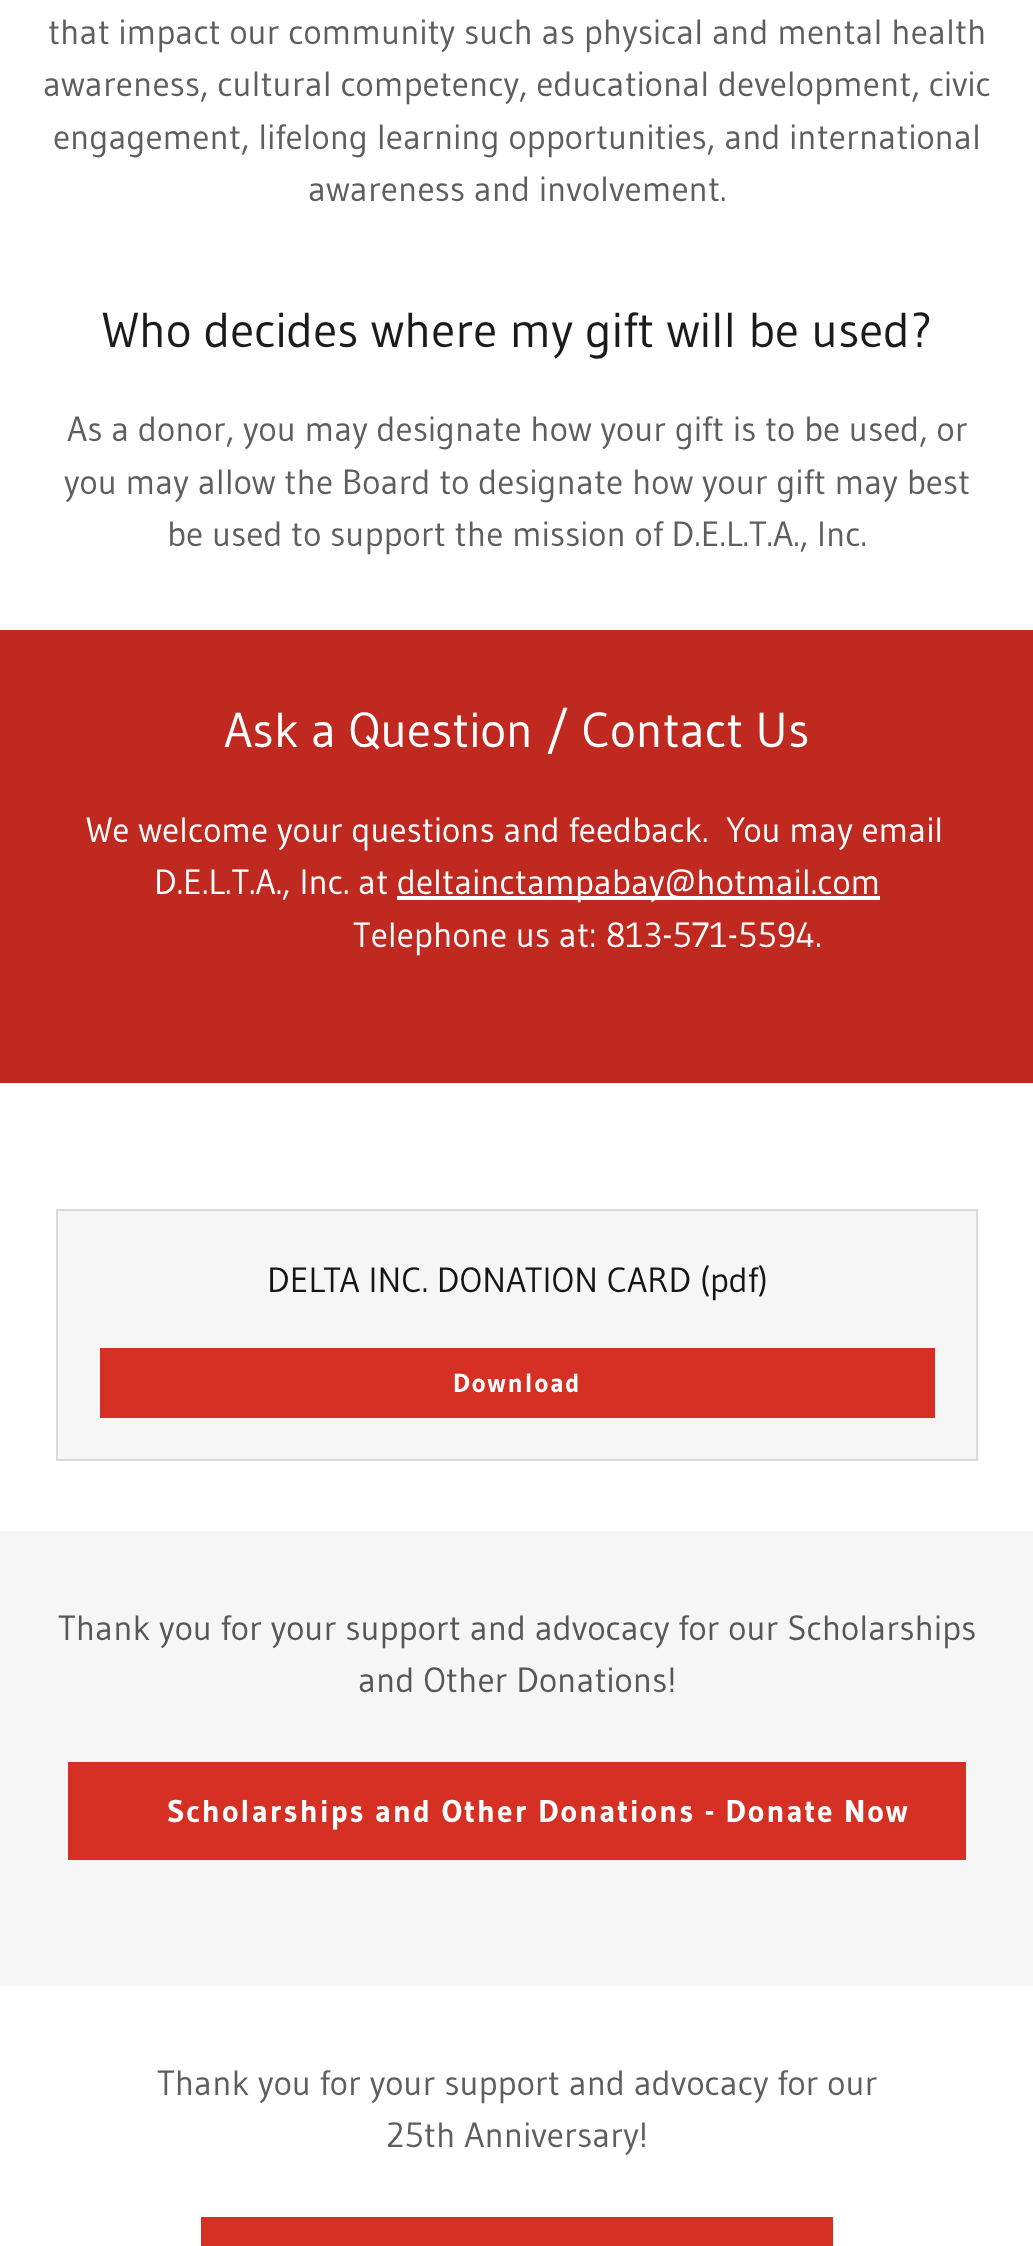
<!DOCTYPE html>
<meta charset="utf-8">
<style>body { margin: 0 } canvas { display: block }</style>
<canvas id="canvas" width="1033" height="2246"></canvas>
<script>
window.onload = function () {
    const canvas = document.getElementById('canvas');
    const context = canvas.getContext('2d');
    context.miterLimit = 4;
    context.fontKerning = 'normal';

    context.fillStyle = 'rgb(255, 255, 255)';
    context.fillRect(0, 0, 1033, 2246);
    context.fillStyle = 'rgb(192, 41, 31)';
    context.fillRect(0, 630, 1033, 453);
    context.fillStyle = 'rgb(255, 255, 255)';
    context.fillRect(397, 896, 483, 4);
    context.fillStyle = 'rgb(246, 246, 246)';
    context.beginPath();
    context.rect(57, 1210, 920, 250);
    context.fill();
    context.strokeStyle = 'rgb(218, 218, 218)';
    context.lineWidth = 2;
    context.stroke();
    context.fillStyle = 'rgb(214, 47, 36)';
    context.fillRect(100, 1348, 835, 70);
    context.fillStyle = 'rgb(246, 246, 246)';
    context.fillRect(0, 1531, 1033, 455);
    context.fillStyle = 'rgb(214, 47, 36)';
    context.fillRect(68, 1762, 898, 98);
    context.fillRect(201, 2217, 632, 29);
    context.font = '35px Gudea';
    context.fillStyle = 'rgb(94, 94, 94)';
    context.fillText('that impact our community such as physical and mental health', 48, 44);
    context.fillText('awareness, cultural competency, educational development, civic', 43, 96);
    context.fillText('engagement, lifelong learning opportunities, and international', 53, 149);
    context.fillText('awareness and involvement.', 308, 201);
    context.font = '49px Gudea';
    context.fillStyle = 'rgb(27, 27, 27)';
    context.fillText('Who decides where my gift will be used?', 102, 347);
    context.font = '35px Gudea';
    context.fillStyle = 'rgb(94, 94, 94)';
    context.fillText('As a donor, you may designate how your gift is to be used, or', 67, 441);
    context.fillText('you may allow the Board to designate how your gift may best', 64, 494);
    context.fillText('be used to support the mission of D.E.L.T.A., Inc.', 167, 546);
    context.font = '49px Gudea';
    context.fillStyle = 'rgb(255, 255, 255)';
    context.fillText('Ask a Question / Contact Us', 224, 747);
    context.font = '35px Gudea';
    context.fillText('We welcome your questions and feedback.  You may email', 86, 842);
    context.fillText('D.E.L.T.A., Inc. at', 154, 894);
    context.fillText('deltainctampabay@hotmail.com', 397, 894);
    context.fillText('Telephone us at: 813-571-5594.', 353, 947);
    context.fillStyle = 'rgb(21, 21, 21)';
    context.fillText('DELTA INC. DONATION CARD (pdf)', 267, 1292);
    context.letterSpacing = '1.85px';
    context.font = 'bold 26.25px Gudea';
    context.fillStyle = 'rgb(255, 255, 255)';
    context.fillText('Download', 453, 1392);
    context.letterSpacing = '0px';
    context.font = '35px Gudea';
    context.fillStyle = 'rgb(87, 87, 87)';
    context.fillText('Thank you for your support and advocacy for our Scholarships', 58, 1640);
    context.fillText('and Other Donations!', 358, 1692);
    context.letterSpacing = '1.85px';
    context.font = 'bold 31.5px Gudea';
    context.fillStyle = 'rgb(255, 255, 255)';
    context.fillText('Scholarships and Other Donations - Donate Now', 167, 1822);
    context.letterSpacing = '0px';
    context.font = '35px Gudea';
    context.fillStyle = 'rgb(94, 94, 94)';
    context.fillText('Thank you for your support and advocacy for our', 157, 2095);
    context.fillText('25th Anniversary!', 386, 2147);
};
</script>
